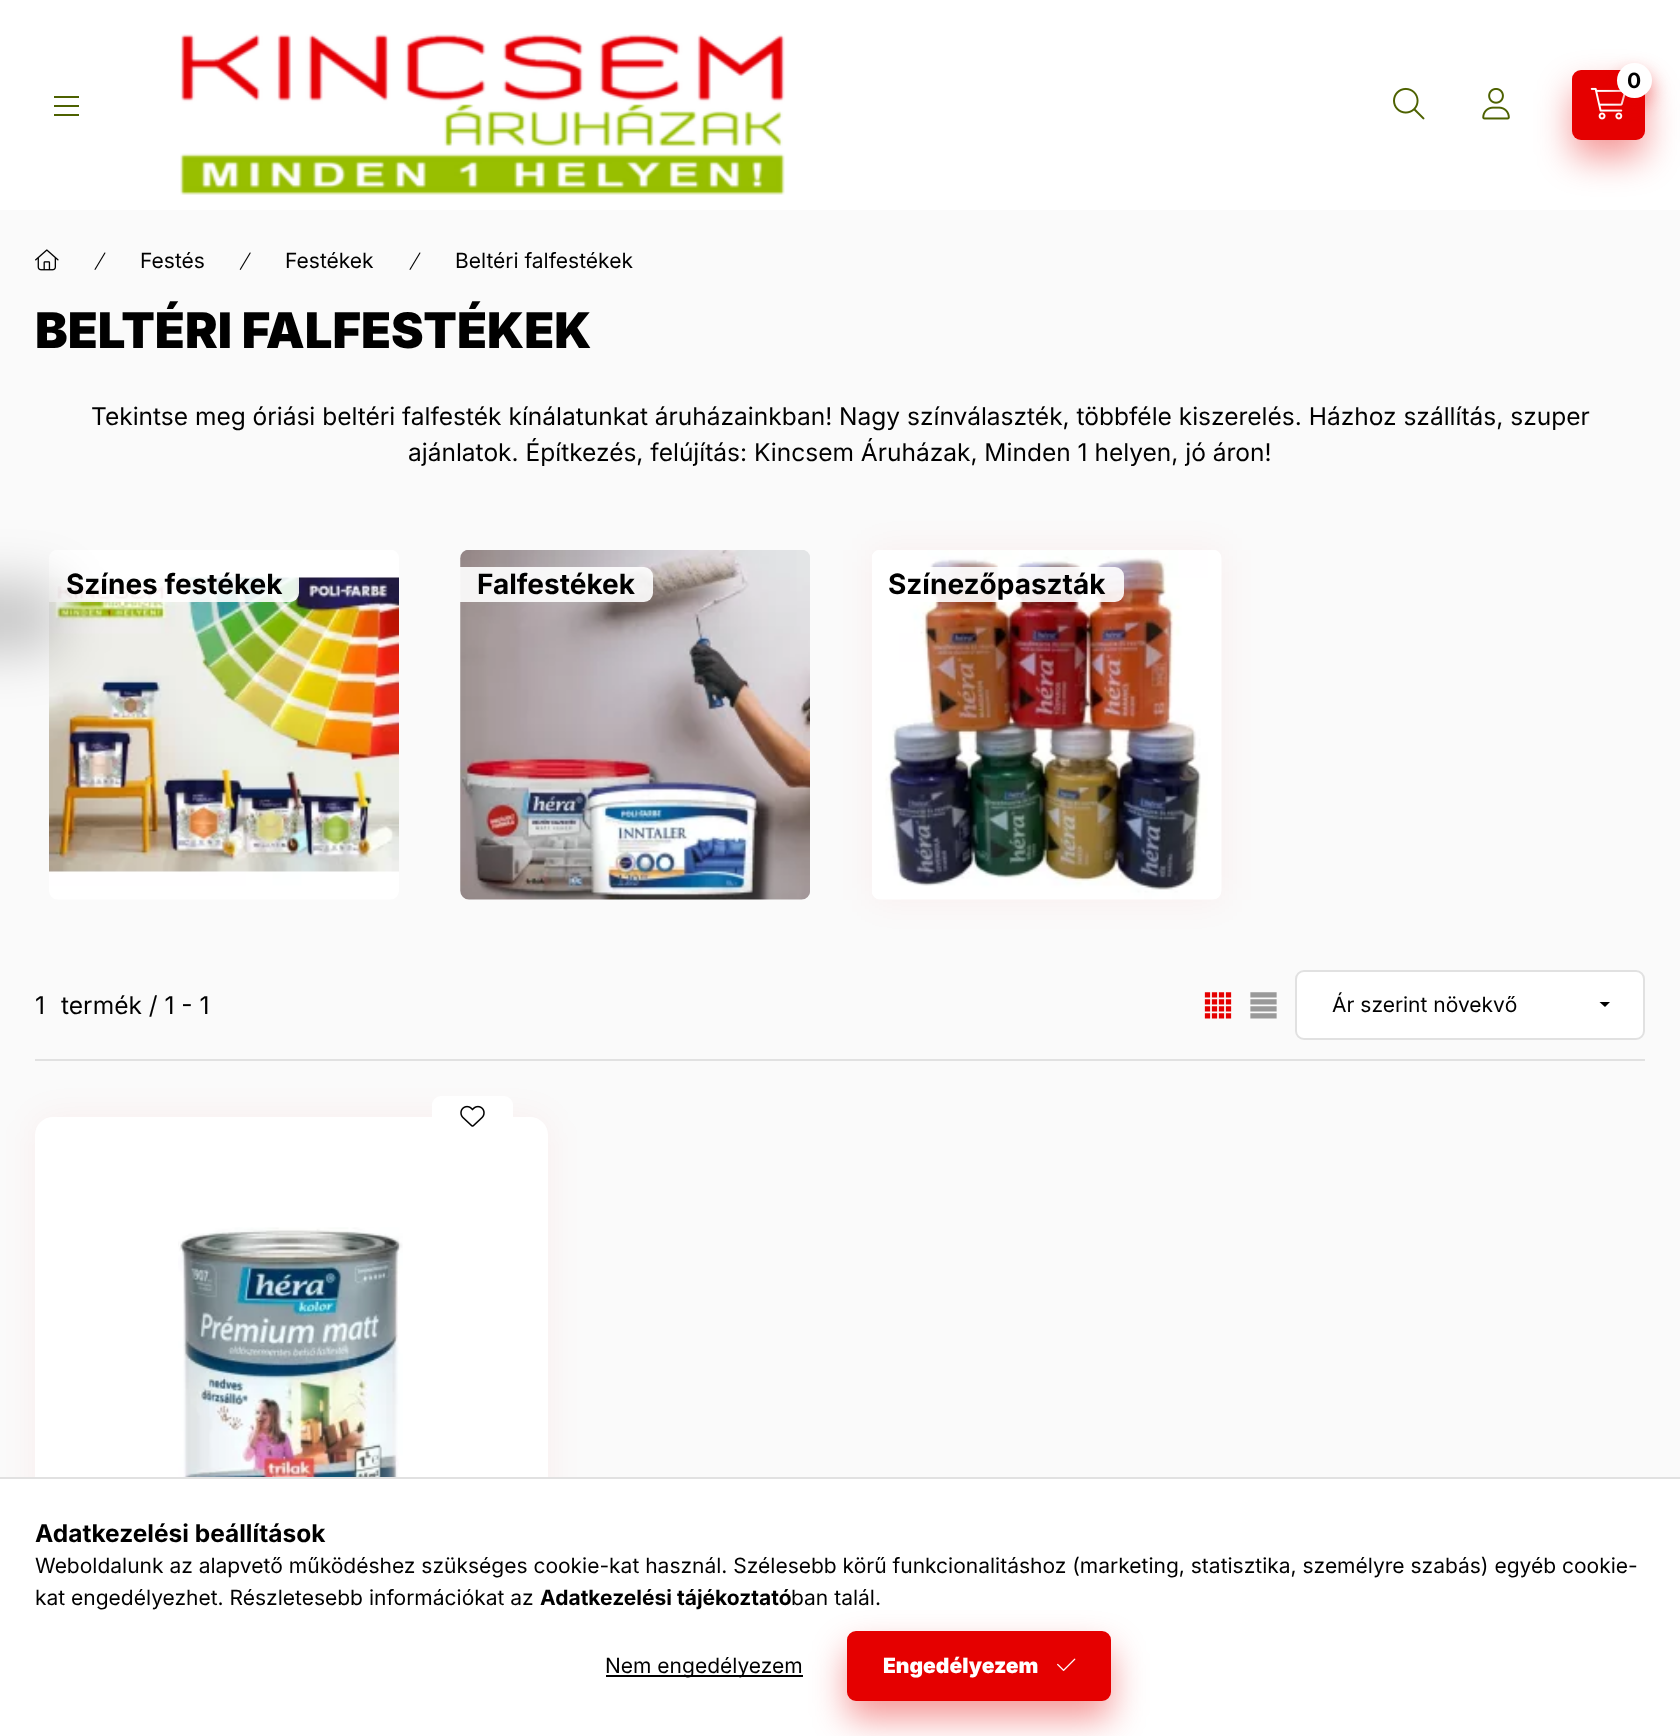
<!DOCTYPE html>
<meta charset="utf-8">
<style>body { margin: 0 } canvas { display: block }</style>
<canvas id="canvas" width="1680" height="1736"></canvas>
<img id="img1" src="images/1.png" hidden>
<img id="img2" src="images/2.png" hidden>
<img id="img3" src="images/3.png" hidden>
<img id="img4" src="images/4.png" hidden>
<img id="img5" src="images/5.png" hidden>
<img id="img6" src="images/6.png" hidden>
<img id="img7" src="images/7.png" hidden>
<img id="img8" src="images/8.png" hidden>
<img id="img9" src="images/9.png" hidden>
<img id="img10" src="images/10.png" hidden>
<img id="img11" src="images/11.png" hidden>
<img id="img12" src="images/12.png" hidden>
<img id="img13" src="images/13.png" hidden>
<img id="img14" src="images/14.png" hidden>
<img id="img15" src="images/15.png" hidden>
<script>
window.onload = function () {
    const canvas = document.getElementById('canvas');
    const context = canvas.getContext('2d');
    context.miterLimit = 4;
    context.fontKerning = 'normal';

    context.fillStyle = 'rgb(250, 250, 250)';
    context.fillRect(0, 0, 1680, 1736);
    context.fillStyle = 'rgb(255, 255, 255)';
    context.fillRect(0, 0, 1680, 210);
    context.fillStyle = 'rgb(77, 97, 0)';
    context.fillRect(54, 96, 25, 2);
    context.fillRect(54, 105, 25, 2);
    context.fillRect(54, 114, 25, 2);
    context.drawImage(document.getElementById('img1'), 180, 34, 605, 161);
    context.fillStyle = 'rgba(229, 0, 0, 0.4)';
    context.filter = 'blur(17.5px)';
    context.beginPath();
    context.roundRect(1572, 88, 73, 70, 9);
    context.fill();
    context.filter = 'none';
    context.fillStyle = 'rgb(229, 0, 0)';
    context.beginPath();
    context.roundRect(1572, 70, 73, 70, 9);
    context.fill();
    context.drawImage(document.getElementById('img2'), 1590, 87, 36, 33);
    context.fillStyle = 'rgba(229, 0, 0, 0.4)';
    context.filter = 'blur(9px)';
    context.beginPath();
    context.roundRect(1617, 72, 35, 35, 17.5);
    context.fill();
    context.filter = 'none';
    context.fillStyle = 'rgb(255, 255, 255)';
    context.beginPath();
    context.arc(1634.5, 80.5, 17.5, 0, 2 * Math.PI);
    context.fill();
    context.drawImage(document.getElementById('img3'), 1393, 87, 32, 33);
    context.drawImage(document.getElementById('img4'), 1482, 88, 28, 32);
    context.drawImage(document.getElementById('img5'), 35, 249, 24, 22);
    context.drawImage(document.getElementById('img6'), 94, 252, 12, 18);
    context.drawImage(document.getElementById('img7'), 239, 252, 12, 18);
    context.drawImage(document.getElementById('img6'), 409, 252, 12, 18);
    context.drawImage(document.getElementById('img8'), 49, 550, 350, 350);
    context.fillStyle = 'rgba(255, 255, 255, 0.9)';
    context.beginPath();
    context.roundRect(49, 567, 250, 35, [0, 9, 9, 0]);
    context.fill();
    context.drawImage(document.getElementById('img9'), 460, 550, 350, 350);
    context.beginPath();
    context.roundRect(460, 567, 193, 35, [0, 9, 9, 0]);
    context.fill();
    context.fillStyle = 'rgba(229, 0, 0, 0.05)';
    context.filter = 'blur(17.5px)';
    context.beginPath();
    context.rect(872, 550, 350, 350);
    context.fill();
    context.filter = 'none';
    context.drawImage(document.getElementById('img10'), 872, 550, 350, 350);
    context.fillStyle = 'rgba(255, 255, 255, 0.9)';
    context.beginPath();
    context.roundRect(872, 567, 252, 35, [0, 9, 9, 0]);
    context.fill();
    context.fillStyle = 'rgb(225, 225, 225)';
    context.fillRect(35, 1059, 1610, 2);
    context.drawImage(document.getElementById('img11'), 1204, 992, 28, 27);
    context.drawImage(document.getElementById('img12'), 1250, 992, 27, 27);
    context.fillStyle = 'rgb(255, 255, 255)';
    context.beginPath();
    context.roundRect(1296, 971, 348, 68, 8);
    context.fill();
    context.strokeStyle = 'rgb(225, 225, 225)';
    context.lineWidth = 2;
    context.stroke();
    context.fillStyle = 'rgb(0, 0, 0)';
    context.beginPath();
    context.moveTo(1599.5, 1002);
    context.lineTo(1610, 1002);
    context.lineTo(1605, 1007);
    context.closePath();
    context.fill();
    context.fillStyle = 'rgba(229, 0, 0, 0.05)';
    context.filter = 'blur(17.5px)';
    context.beginPath();
    context.roundRect(35, 1117, 513, 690, 18);
    context.fill();
    context.filter = 'none';
    context.fillStyle = 'rgb(255, 255, 255)';
    context.beginPath();
    context.roundRect(35, 1117, 513, 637, 18);
    context.fill();
    context.beginPath();
    context.roundRect(432, 1096, 81, 42, 9);
    context.fill();
    context.drawImage(document.getElementById('img13'), 460, 1105, 25, 22);
    context.drawImage(document.getElementById('img14'), 178, 1227, 225, 250);
    context.fillStyle = 'rgba(0, 0, 0, 0.2)';
    context.filter = 'blur(26px)';
    context.beginPath();
    context.roundRect(-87, 583, 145, 70, 9);
    context.fill();
    context.filter = 'none';
    context.fillStyle = 'rgb(255, 255, 255)';
    context.fillRect(0, 1479, 1680, 257);
    context.fillStyle = 'rgb(225, 225, 225)';
    context.fillRect(0, 1477, 1680, 2);
    context.fillStyle = 'rgb(0, 0, 0)';
    context.fillRect(606, 1675, 197, 2);
    context.fillStyle = 'rgba(229, 0, 0, 0.4)';
    context.filter = 'blur(17.5px)';
    context.beginPath();
    context.roundRect(847, 1649, 264, 70, 9);
    context.fill();
    context.filter = 'none';
    context.fillStyle = 'rgb(229, 0, 0)';
    context.beginPath();
    context.roundRect(848, 1632, 262, 68, 8);
    context.fill();
    context.strokeStyle = 'rgb(229, 0, 0)';
    context.stroke();
    context.drawImage(document.getElementById('img15'), 1057, 1658, 19, 13);
    context.font = 'bold 21px Inter';
    context.fillStyle = 'rgb(0, 0, 0)';
    context.fillText('0', 1627, 88);
    context.font = '21px Inter';
    context.fillText('Festés', 140, 268);
    context.fillText('Festékek', 285, 268);
    context.fillText('Beltéri falfestékek', 455, 268);
    context.font = '900 49px Inter';
    context.fillText('BELTÉRI FALFESTÉKEK', 35, 348);
    context.font = '24.5px Inter';
    context.fillText('Tekintse meg óriási beltéri falfesték kínálatunkat áruházainkban! Nagy színválaszték, többféle kiszerelés. Házhoz szállítás, szuper', 91, 425);
    context.fillText('ajánlatok. Építkezés, felújítás: Kincsem Áruházak, Minden 1 helyen, jó áron!', 408, 461);
    context.font = 'bold 28px Inter';
    context.fillText('Színes festékek', 66, 594);
    context.fillText('Falfestékek', 477, 594);
    context.fillText('Színezőpaszták', 888, 594);
    context.font = '24.5px Inter';
    context.fillText('1', 35, 1014);
    context.fillText('termék / 1 - 1', 61, 1014);
    context.font = '21px Inter';
    context.fillText('Ár szerint növekvő', 1332, 1012);
    context.font = 'bold 24.5px Inter';
    context.fillText('Adatkezelési beállítások', 35, 1542);
    context.font = '21px Inter';
    context.fillText('Weboldalunk az alapvető működéshez szükséges cookie-kat használ. Szélesebb körű funkcionalitáshoz (marketing, statisztika, személyre szabás) egyéb cookie-', 35, 1573);
    context.fillText('kat engedélyezhet. Részletesebb információkat az', 35, 1605);
    context.font = 'bold 21px Inter';
    context.fillText('Adatkezelési tájékoztató', 540, 1605);
    context.font = '21px Inter';
    context.fillText('ban talál.', 791, 1605);
    context.fillText('Nem engedélyezem', 605, 1673);
    context.font = '900 21px Inter';
    context.fillStyle = 'rgb(255, 255, 255)';
    context.fillText('Engedélyezem', 883, 1673);
};
</script>
